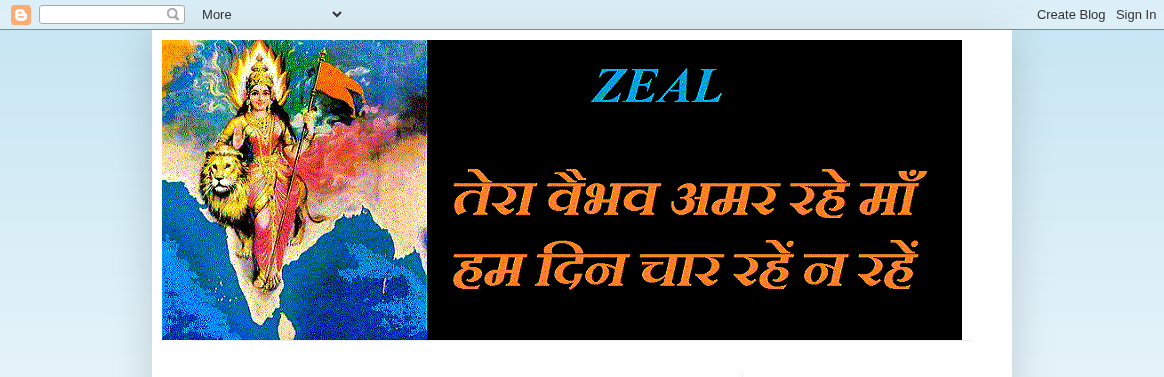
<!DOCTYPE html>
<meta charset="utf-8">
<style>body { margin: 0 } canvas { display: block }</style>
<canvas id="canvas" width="1164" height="377"></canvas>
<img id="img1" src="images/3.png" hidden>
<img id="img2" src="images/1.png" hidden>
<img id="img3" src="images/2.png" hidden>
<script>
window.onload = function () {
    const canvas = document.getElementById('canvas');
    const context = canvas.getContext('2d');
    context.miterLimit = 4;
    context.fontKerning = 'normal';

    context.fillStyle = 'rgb(194, 228, 242)';
    context.fillRect(0, 0, 1164, 377);
    context.drawImage(document.getElementById('img1'), 0, 10, 1164, 367);
    context.fillStyle = 'rgba(0, 0, 0, 0.15)';
    context.filter = 'blur(20px)';
    context.beginPath();
    context.rect(152, 30, 860, 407);
    context.fill();
    context.filter = 'none';
    context.drawImage(document.getElementById('img2'), 0, 0, 1164, 30);
    context.fillStyle = 'rgb(255, 255, 255)';
    context.fillRect(152, 30, 860, 347);
    context.drawImage(document.getElementById('img3'), 162, 40, 800, 300);
    context.fillStyle = 'rgb(238, 238, 238)';
    context.fillRect(192, 340, 780, 1);
    context.fillRect(742, 371, 1, 6);
};
</script>
